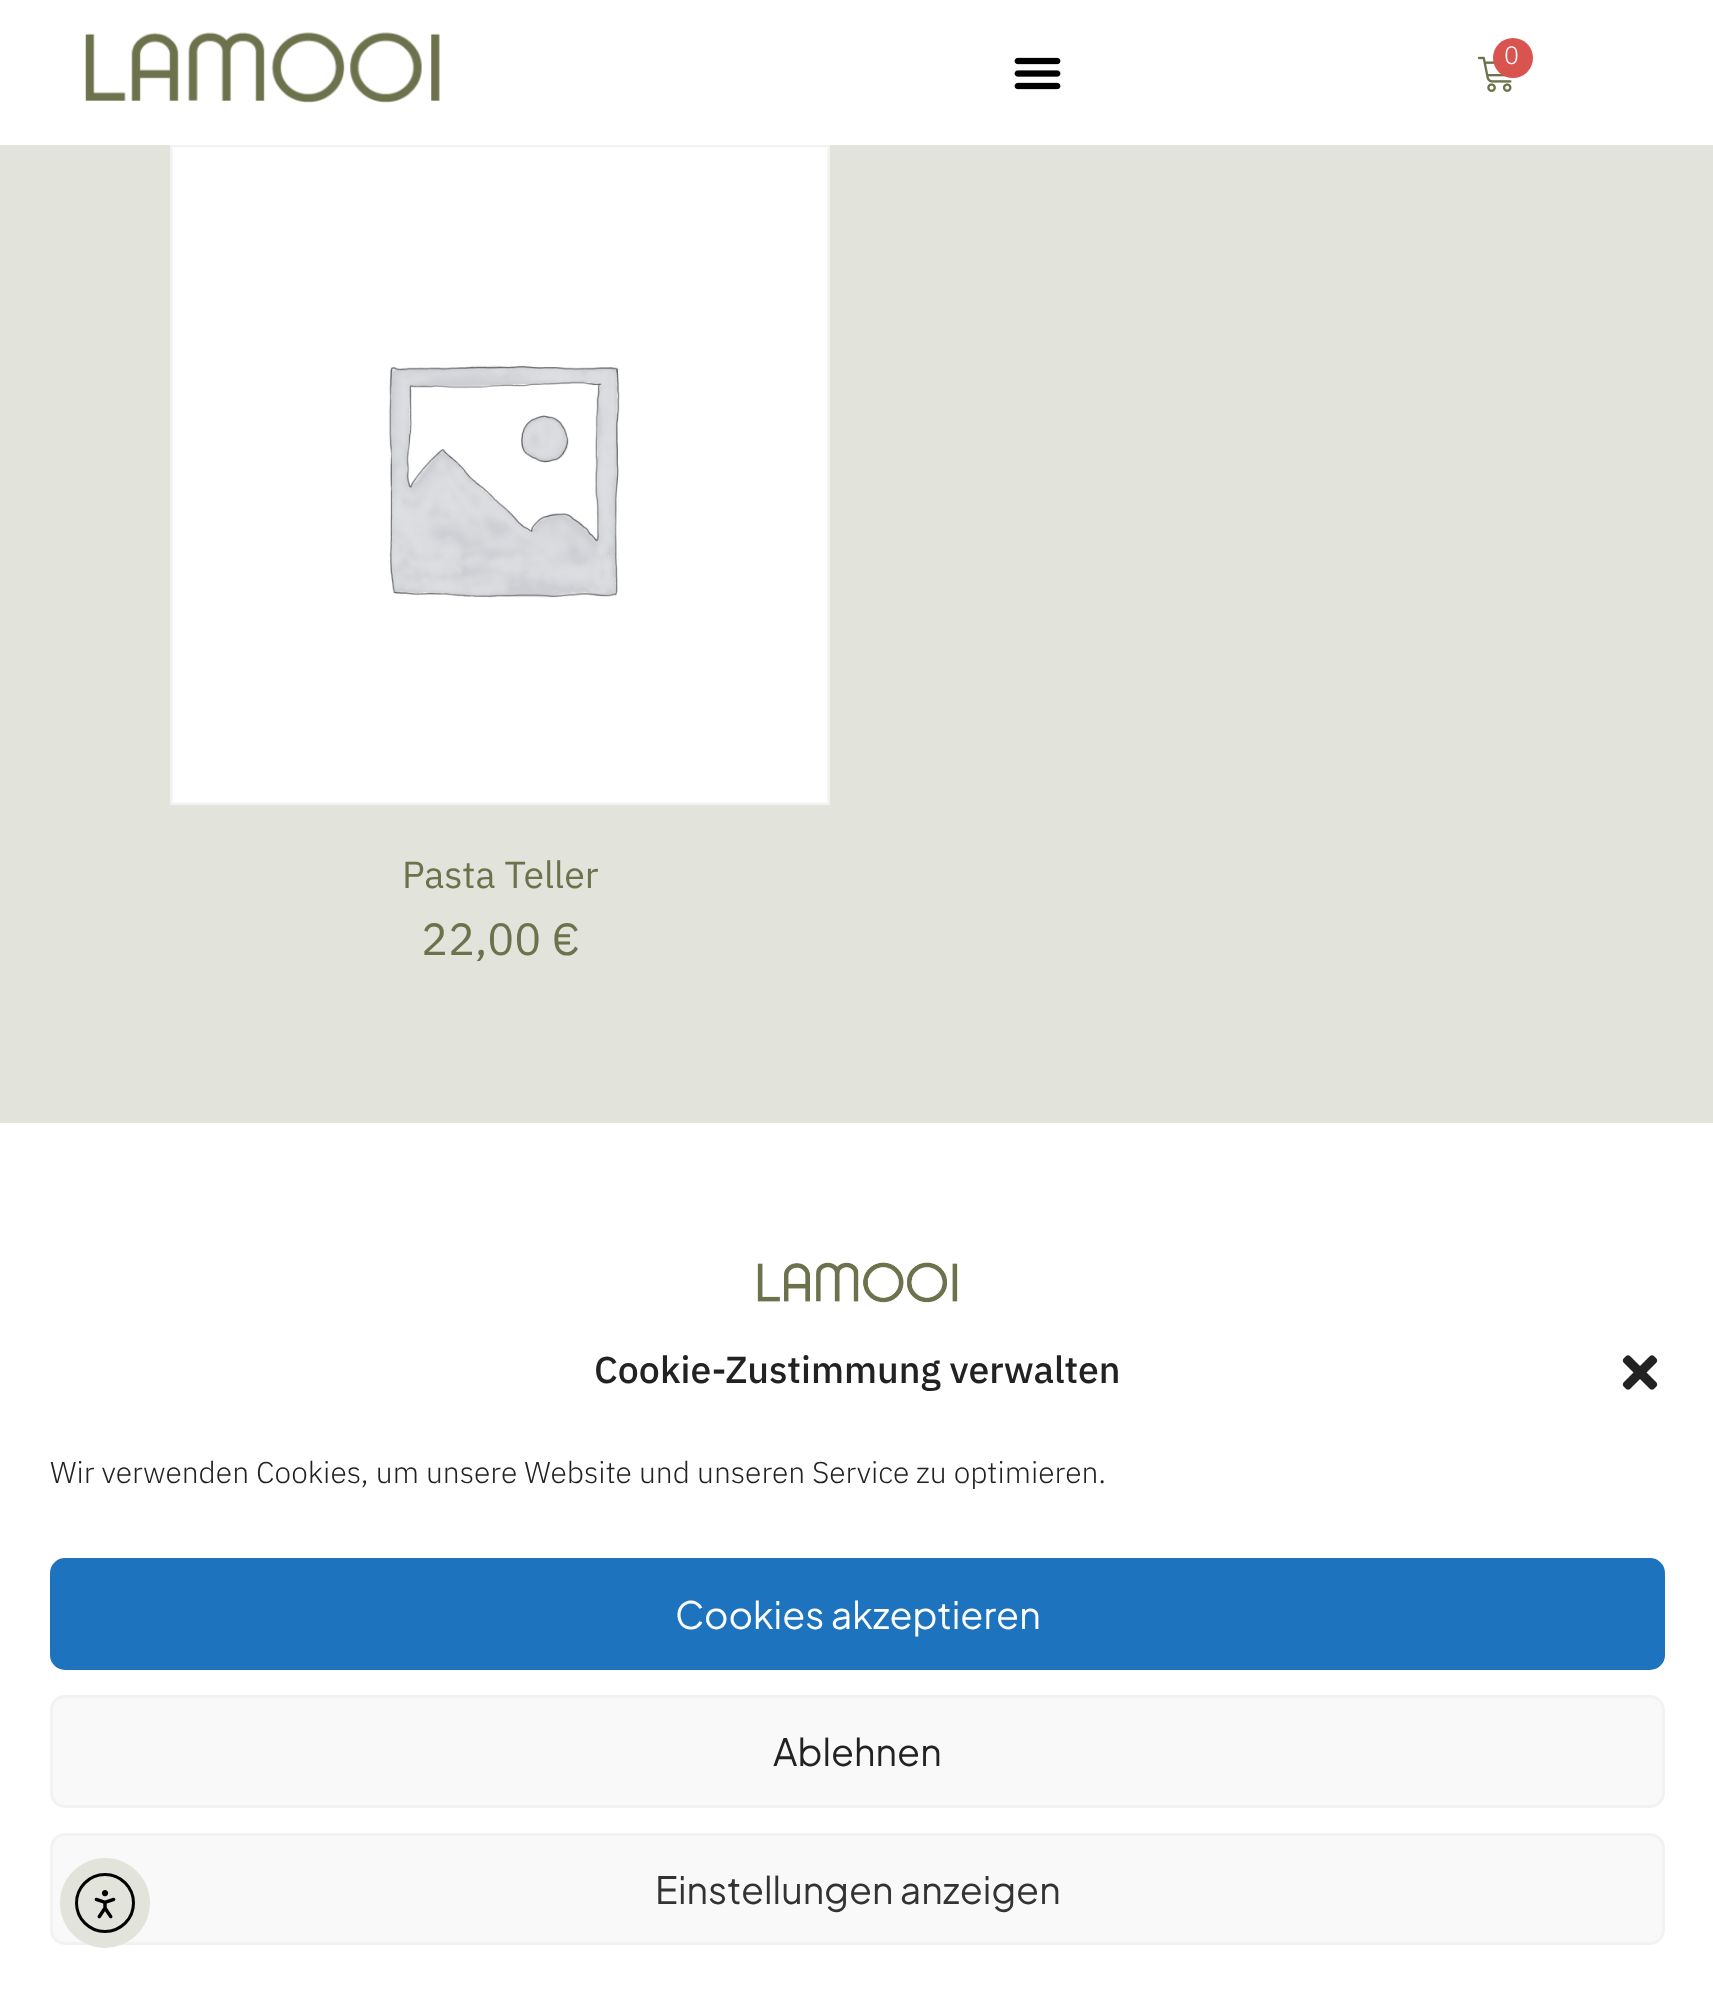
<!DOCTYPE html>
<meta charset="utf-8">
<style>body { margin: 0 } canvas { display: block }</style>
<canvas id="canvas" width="1713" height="2006"></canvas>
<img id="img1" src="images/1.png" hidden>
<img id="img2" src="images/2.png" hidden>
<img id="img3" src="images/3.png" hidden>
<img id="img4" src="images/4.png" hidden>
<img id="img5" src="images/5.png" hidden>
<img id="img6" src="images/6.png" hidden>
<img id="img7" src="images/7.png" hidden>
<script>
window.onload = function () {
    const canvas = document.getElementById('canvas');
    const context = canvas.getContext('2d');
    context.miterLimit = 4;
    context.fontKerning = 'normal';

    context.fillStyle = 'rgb(226, 227, 218)';
    context.fillRect(0, 0, 1713, 2006);
    context.fillStyle = 'rgb(255, 255, 255)';
    context.fillRect(0, 0, 1713, 145);
    context.drawImage(document.getElementById('img1'), 85, 32, 355, 71);
    context.drawImage(document.getElementById('img2'), 1014, 57, 47, 33);
    context.drawImage(document.getElementById('img3'), 1477, 56, 35, 36);
    context.fillStyle = 'rgb(217, 83, 79)';
    context.beginPath();
    context.arc(1513, 58, 20, 0, 2 * Math.PI);
    context.fill();
    context.strokeStyle = 'rgb(242, 242, 242)';
    context.lineWidth = 3;
    context.strokeRect(171.5, 146.5, 657, 657);
    context.drawImage(document.getElementById('img4'), 172, 147, 656, 656);
    context.fillStyle = 'rgb(255, 255, 255)';
    context.fillRect(0, 1123, 1713, 883);
    context.drawImage(document.getElementById('img5'), 757, 1262, 201, 41);
    context.drawImage(document.getElementById('img6'), 1622, 1355, 36, 35);
    context.fillStyle = 'rgb(30, 115, 190)';
    context.beginPath();
    context.roundRect(51.5, 1559.5, 1612, 109, 13.5);
    context.fill();
    context.strokeStyle = 'rgb(30, 115, 190)';
    context.stroke();
    context.fillStyle = 'rgb(249, 249, 249)';
    context.beginPath();
    context.roundRect(51.5, 1696.5, 1612, 110, 13.5);
    context.fill();
    context.strokeStyle = 'rgb(242, 242, 242)';
    context.stroke();
    context.beginPath();
    context.roundRect(51.5, 1834.5, 1612, 109, 13.5);
    context.fill();
    context.stroke();
    context.fillStyle = 'rgb(226, 227, 218)';
    context.beginPath();
    context.arc(105, 1903, 45, 0, 2 * Math.PI);
    context.fill();
    context.beginPath();
    context.arc(105, 1903, 28.5, 0, 2 * Math.PI);
    context.strokeStyle = 'rgb(0, 0, 0)';
    context.stroke();
    context.drawImage(document.getElementById('img7'), 94, 1890, 22, 29);
    context.font = '300 25px IBM Plex Sans';
    context.fillStyle = 'rgb(255, 255, 255)';
    context.fillText('0', 1504, 64);
    context.font = '37.5px IBM Plex Sans';
    context.fillStyle = 'rgb(109, 114, 77)';
    context.fillText('Pasta Teller', 402, 888);
    context.font = '45px IBM Plex Sans';
    context.fillText('22,00 €', 421, 955);
    context.font = '500 37.5px IBM Plex Sans';
    context.fillStyle = 'rgb(34, 34, 34)';
    context.fillText('Cookie-Zustimmung verwalten', 594, 1383);
    context.font = '300 30px IBM Plex Sans';
    context.fillText('Wir verwenden Cookies, um unsere Website und unseren Service zu optimieren.', 50, 1483);
    context.font = '37.5px Plus Jakarta Sans';
    context.fillStyle = 'rgb(255, 255, 255)';
    context.fillText('Cookies akzeptieren', 675, 1629);
    context.fillStyle = 'rgb(34, 34, 34)';
    context.fillText('Ablehnen', 773, 1766);
    context.fillStyle = 'rgb(51, 51, 51)';
    context.fillText('Einstellungen anzeigen', 655, 1904);
};
</script>
